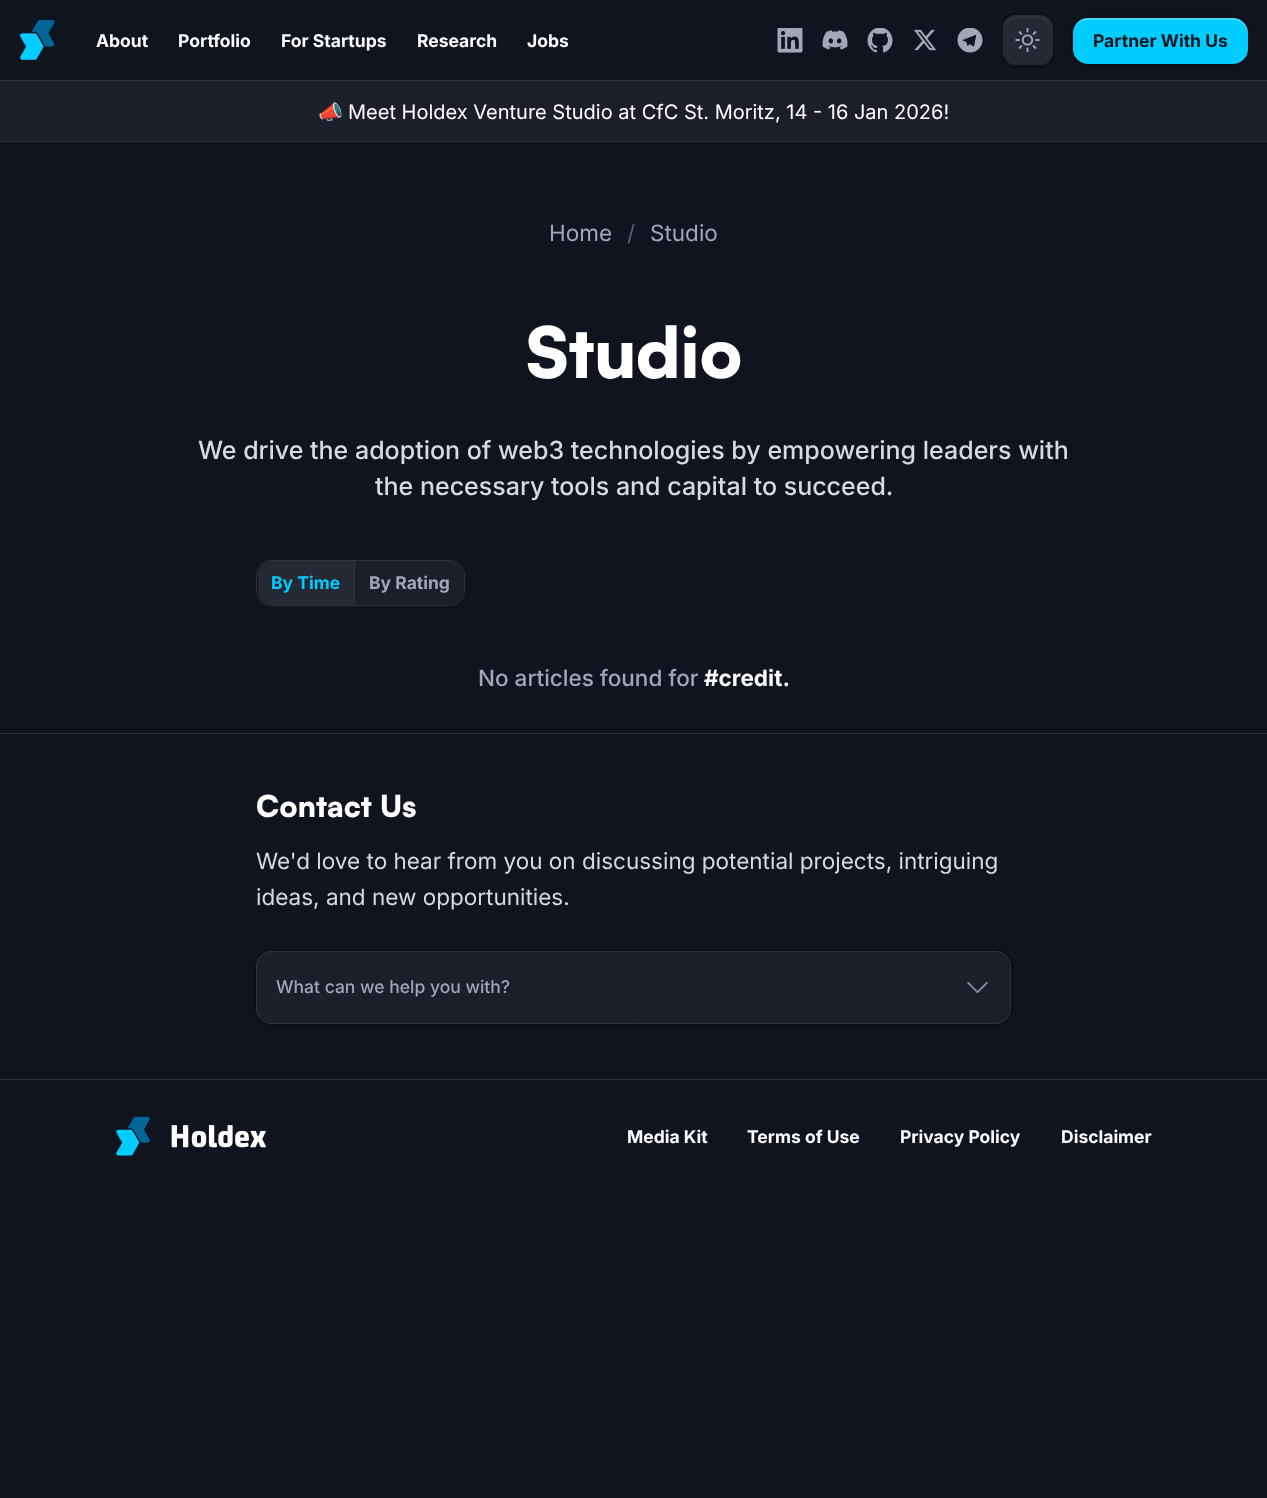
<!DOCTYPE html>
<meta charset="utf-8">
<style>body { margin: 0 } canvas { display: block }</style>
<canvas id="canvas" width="1267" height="1498"></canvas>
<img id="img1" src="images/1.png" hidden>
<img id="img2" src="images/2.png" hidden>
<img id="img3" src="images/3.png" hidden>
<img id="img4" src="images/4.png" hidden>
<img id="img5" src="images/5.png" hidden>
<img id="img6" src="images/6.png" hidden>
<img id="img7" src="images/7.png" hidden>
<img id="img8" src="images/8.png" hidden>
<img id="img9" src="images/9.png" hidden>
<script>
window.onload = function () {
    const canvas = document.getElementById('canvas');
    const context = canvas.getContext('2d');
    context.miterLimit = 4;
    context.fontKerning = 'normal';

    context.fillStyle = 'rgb(16, 20, 31)';
    context.fillRect(0, 0, 1267, 1498);
    context.fillStyle = 'rgb(47, 50, 61)';
    context.fillRect(0, 80, 1267, 1);
    context.drawImage(document.getElementById('img1'), 20, 20, 35, 40);
    context.beginPath();
    context.roundRect(1001.5, 14.5, 52, 52, 13.5);
    context.strokeStyle = 'rgba(0, 0, 0, 0.2)';
    context.lineWidth = 3;
    context.stroke();
    context.fillStyle = 'rgb(16, 20, 31)';
    context.fillRect(1000, 20, 3, 41);
    context.drawImage(document.getElementById('img2'), 777, 28, 26, 25);
    context.drawImage(document.getElementById('img3'), 822, 30, 26, 20);
    context.drawImage(document.getElementById('img4'), 867, 28, 26, 25);
    context.drawImage(document.getElementById('img5'), 914, 29, 23, 22);
    context.drawImage(document.getElementById('img6'), 957, 28, 26, 25);
    context.fillStyle = 'rgb(37, 41, 51)';
    context.beginPath();
    context.roundRect(1003, 15, 50, 50, 13);
    context.fill();
    context.fillStyle = 'rgb(46, 50, 59)';
    context.beginPath();
    context.moveTo(1015, 19);
    context.lineTo(1040, 19);
    context.bezierCurveTo(1046, 19, 1051, 24, 1051, 30);
    context.bezierCurveTo(1051, 14, 1040, 16, 1028, 16);
    context.bezierCurveTo(1015, 16, 1004, 14, 1004, 30);
    context.bezierCurveTo(1004, 24, 1009, 19, 1015, 19);
    context.closePath();
    context.fill();
    context.beginPath();
    context.roundRect(1003.5, 15.5, 49, 49, 12.5);
    context.strokeStyle = 'rgb(37, 41, 51)';
    context.lineWidth = 1;
    context.stroke();
    context.drawImage(document.getElementById('img7'), 1015, 27, 25, 26);
    context.beginPath();
    context.roundRect(1071.5, 16.5, 177, 48, 16.5);
    context.strokeStyle = 'rgba(0, 0, 0, 0.2)';
    context.lineWidth = 3;
    context.stroke();
    context.fillStyle = 'rgb(0, 204, 255)';
    context.beginPath();
    context.roundRect(1073, 18, 175, 46, 15);
    context.fill();
    context.fillStyle = 'rgba(255, 255, 255, 0.24)';
    context.beginPath();
    context.moveTo(1088, 20);
    context.lineTo(1232, 20);
    context.bezierCurveTo(1241, 20, 1248, 27, 1248, 35);
    context.lineTo(1248, 33);
    context.bezierCurveTo(1248, 25, 1241, 18, 1233, 18);
    context.lineTo(1088, 18);
    context.bezierCurveTo(1081, 18, 1076, 22, 1074, 28);
    context.bezierCurveTo(1076, 23, 1082, 20, 1088, 20);
    context.closePath();
    context.fill();
    context.fillStyle = 'rgb(28, 31, 41)';
    context.fillRect(0, 81, 1267, 60);
    context.fillStyle = 'rgb(47, 50, 61)';
    context.fillRect(0, 141, 1267, 1);
    context.beginPath();
    context.roundRect(256.5, 560.5, 208, 45, 14.5);
    context.strokeStyle = 'rgb(47, 50, 61)';
    context.lineWidth = 1;
    context.stroke();
    context.fillStyle = 'rgb(37, 41, 51)';
    context.beginPath();
    context.roundRect(258, 561, 96, 44, [14, 0, 0, 14]);
    context.fill();
    context.fillStyle = 'rgb(47, 50, 61)';
    context.fillRect(354, 561, 1, 44);
    context.fillStyle = 'rgb(28, 31, 41)';
    context.beginPath();
    context.roundRect(355, 561, 109, 44, [0, 14, 14, 0]);
    context.fill();
    context.fillStyle = 'rgb(47, 50, 61)';
    context.fillRect(0, 733, 1267, 1);
    context.fillRect(0, 1079, 1267, 1);
    context.beginPath();
    context.roundRect(255.5, 950.5, 757, 74, 16.5);
    context.strokeStyle = 'rgba(0, 0, 0, 0.2)';
    context.lineWidth = 3;
    context.stroke();
    context.fillStyle = 'rgb(28, 31, 41)';
    context.beginPath();
    context.roundRect(256.5, 951.5, 754, 72, 14.5);
    context.fill();
    context.strokeStyle = 'rgb(47, 50, 61)';
    context.lineWidth = 1;
    context.stroke();
    context.drawImage(document.getElementById('img8'), 967, 981, 21, 12);
    context.drawImage(document.getElementById('img9'), 116, 1116, 150, 40);
    context.font = 'bold 17.5px Inter';
    context.fillStyle = 'rgb(255, 255, 255)';
    context.fillText('About', 96, 47);
    context.fillText('Portfolio', 178, 47);
    context.fillText('For Startups', 281, 47);
    context.fillText('Research', 417, 47);
    context.fillText('Jobs', 527, 47);
    context.fillStyle = 'rgb(16, 20, 31)';
    context.fillText('Partner With Us', 1093, 47);
    context.font = '20px Noto Color Emoji';
    context.fillStyle = 'rgb(255, 255, 255)';
    context.fillText('📣', 318, 119);
    context.font = '20px Inter';
    context.fillText('Meet Holdex Venture Studio at CfC St. Moritz, 14 - 16 Jan 2026!', 348, 119);
    context.font = '22.5px Inter';
    context.fillStyle = 'rgb(162, 167, 184)';
    context.fillText('Home', 549, 241);
    context.fillStyle = 'rgb(89, 94, 108)';
    context.fillText('/', 627, 241);
    context.fillStyle = 'rgb(162, 167, 184)';
    context.fillText('Studio', 650, 241);
    context.font = '900 70px Satoshi';
    context.fillStyle = 'rgb(255, 255, 255)';
    context.fillText('Studio', 526, 378);
    context.font = '500 25px Inter';
    context.fillStyle = 'rgb(215, 218, 224)';
    context.fillText('We drive the adoption of web3 technologies by empowering leaders with', 198, 459);
    context.fillText('the necessary tools and capital to succeed.', 375, 495);
    context.font = 'bold 17.5px Inter';
    context.fillStyle = 'rgb(0, 204, 255)';
    context.fillText('By Time', 271, 589);
    context.fillStyle = 'rgb(162, 167, 184)';
    context.fillText('By Rating', 369, 589);
    context.font = '500 22.5px Inter';
    context.fillText('No articles found for', 478, 686);
    context.font = 'bold 22.5px Inter';
    context.fillStyle = 'rgb(255, 255, 255)';
    context.fillText('#credit.', 704, 686);
    context.font = '900 30px Satoshi';
    context.fillText('Contact Us', 256, 817);
    context.font = '22.5px Inter';
    context.fillStyle = 'rgb(215, 218, 224)';
    context.fillText('We\'d love to hear from you on discussing potential projects, intriguing', 256, 869);
    context.fillText('ideas, and new opportunities.', 256, 905);
    context.font = '500 17.5px Inter';
    context.fillStyle = 'rgb(162, 167, 184)';
    context.fillText('What can we help you with?', 276, 993);
    context.font = 'bold 17.5px Inter';
    context.fillStyle = 'rgb(255, 255, 255)';
    context.fillText('Media Kit', 627, 1143);
    context.fillText('Terms of Use', 747, 1143);
    context.fillText('Privacy Policy', 900, 1143);
    context.fillText('Disclaimer', 1061, 1143);
};
</script>
